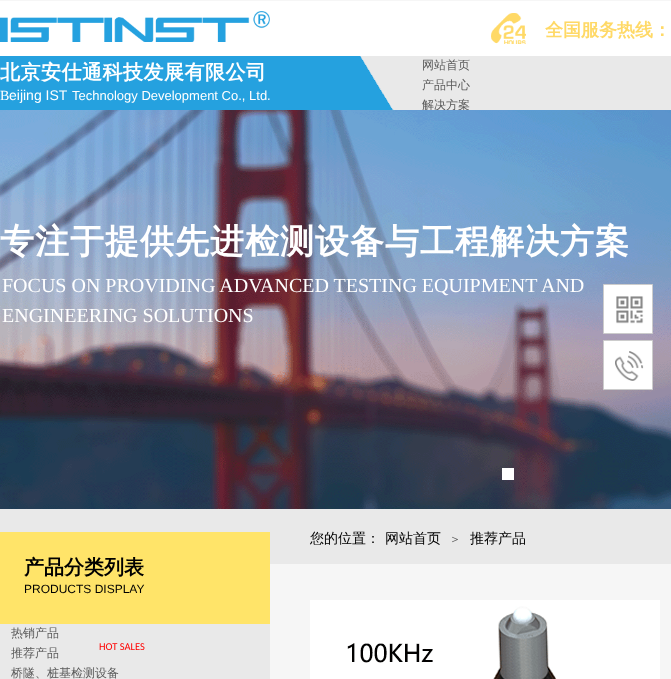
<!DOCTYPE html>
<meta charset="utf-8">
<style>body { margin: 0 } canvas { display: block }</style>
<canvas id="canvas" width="671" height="679"></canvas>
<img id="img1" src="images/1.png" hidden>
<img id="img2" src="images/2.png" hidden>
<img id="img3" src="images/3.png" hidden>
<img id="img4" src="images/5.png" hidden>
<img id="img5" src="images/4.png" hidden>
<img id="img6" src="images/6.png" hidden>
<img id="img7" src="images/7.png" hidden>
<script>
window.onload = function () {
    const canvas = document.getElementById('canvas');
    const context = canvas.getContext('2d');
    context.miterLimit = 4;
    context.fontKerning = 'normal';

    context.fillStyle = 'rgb(246, 246, 246)';
    context.fillRect(0, 0, 671, 679);
    context.fillStyle = 'rgb(255, 255, 255)';
    context.fillRect(0, 1, 671, 55);
    context.drawImage(document.getElementById('img1'), 0, 11, 270, 31);
    context.drawImage(document.getElementById('img2'), 491, 13, 35, 31);
    context.fillStyle = 'rgb(233, 233, 233)';
    context.fillRect(394, 56, 277, 54);
    context.drawImage(document.getElementById('img3'), 0, 56, 394, 54);
    context.fillRect(0, 509, 671, 55);
    context.fillStyle = 'rgb(255, 228, 105)';
    context.fillRect(0, 532, 270, 92);
    context.fillStyle = 'rgb(233, 233, 233)';
    context.fillRect(0, 624, 270, 55);
    context.drawImage(document.getElementById('img4'), 310, 600, 350, 79);
    context.font = 'bold 18px WenQuanYi Zen Hei';
    context.fillStyle = 'rgb(255, 217, 102)';
    context.fillText('全国服务热线：', 545, 36);
    context.letterSpacing = '0.5px';
    context.font = 'bold 20px WenQuanYi Zen Hei';
    context.fillStyle = 'rgb(255, 255, 255)';
    context.fillText('北京安仕通科技发展有限公司', 0, 79);
    context.letterSpacing = '0px';
    context.font = '14px Liberation Serif';
    context.fillText('B', 0, 100);
    context.font = '14px Liberation Sans';
    context.fillText('eijing IST', 9, 100);
    context.font = '13px Liberation Sans';
    context.fillText('Technology Development Co., Ltd.', 72, 100);
    context.font = '500 12px WenQuanYi Zen Hei';
    context.fillStyle = 'rgb(90, 90, 90)';
    context.fillText('网站首页', 422, 69);
    context.fillText('产品中心', 422, 89);
    context.fillText('解决方案', 422, 109);
    context.drawImage(document.getElementById('img5'), 0, 110, 671, 399);
    context.fillStyle = 'rgb(255, 255, 255)';
    context.fillRect(502, 468, 12, 12);
    context.letterSpacing = '1px';
    context.font = 'bold 34px WenQuanYi Zen Hei';
    context.fillText('专注于提供先进检测设备与工程解决方案', 0, 253);
    context.letterSpacing = '0px';
    context.font = '20px Liberation Serif';
    context.fillText('FOCUS ON PROVIDING ADVANCED TESTING EQUIPMENT AND', 2, 292);
    context.fillText('ENGINEERING SOLUTIONS', 2, 322);
    context.font = '500 14px WenQuanYi Zen Hei';
    context.fillStyle = 'rgb(0, 0, 0)';
    context.fillText('您的位置：', 310, 543);
    context.fillText('网站首页', 385, 543);
    context.font = '500 12px WenQuanYi Zen Hei';
    context.fillStyle = 'rgb(90, 90, 90)';
    context.fillText('＞', 449, 543);
    context.font = '500 14px WenQuanYi Zen Hei';
    context.fillStyle = 'rgb(0, 0, 0)';
    context.fillText('推荐产品', 470, 543);
    context.font = 'bold 20px WenQuanYi Zen Hei';
    context.fillText('产品分类列表', 24, 574);
    context.font = '12px Liberation Sans';
    context.fillText('PRODUCTS DISPLAY', 24, 593);
    context.font = '500 12px WenQuanYi Zen Hei';
    context.fillStyle = 'rgb(90, 90, 90)';
    context.fillText('热销产品', 11, 637);
    context.fillText('推荐产品', 11, 657);
    context.fillText('桥隧、桩基检测设备', 11, 677);
    context.font = '10.5px Carlito';
    context.fillStyle = 'rgb(255, 0, 0)';
    context.fillText('HOT SALES', 99, 650);
    context.fillStyle = 'rgb(255, 255, 255)';
    context.beginPath();
    context.rect(603.5, 284.5, 49, 49);
    context.fill();
    context.strokeStyle = 'rgb(204, 204, 204)';
    context.stroke();
    context.drawImage(document.getElementById('img6'), 616, 296, 28, 28);
    context.beginPath();
    context.rect(603.5, 340.5, 49, 49);
    context.fill();
    context.stroke();
    context.drawImage(document.getElementById('img7'), 615, 351, 29, 30);
};
</script>
